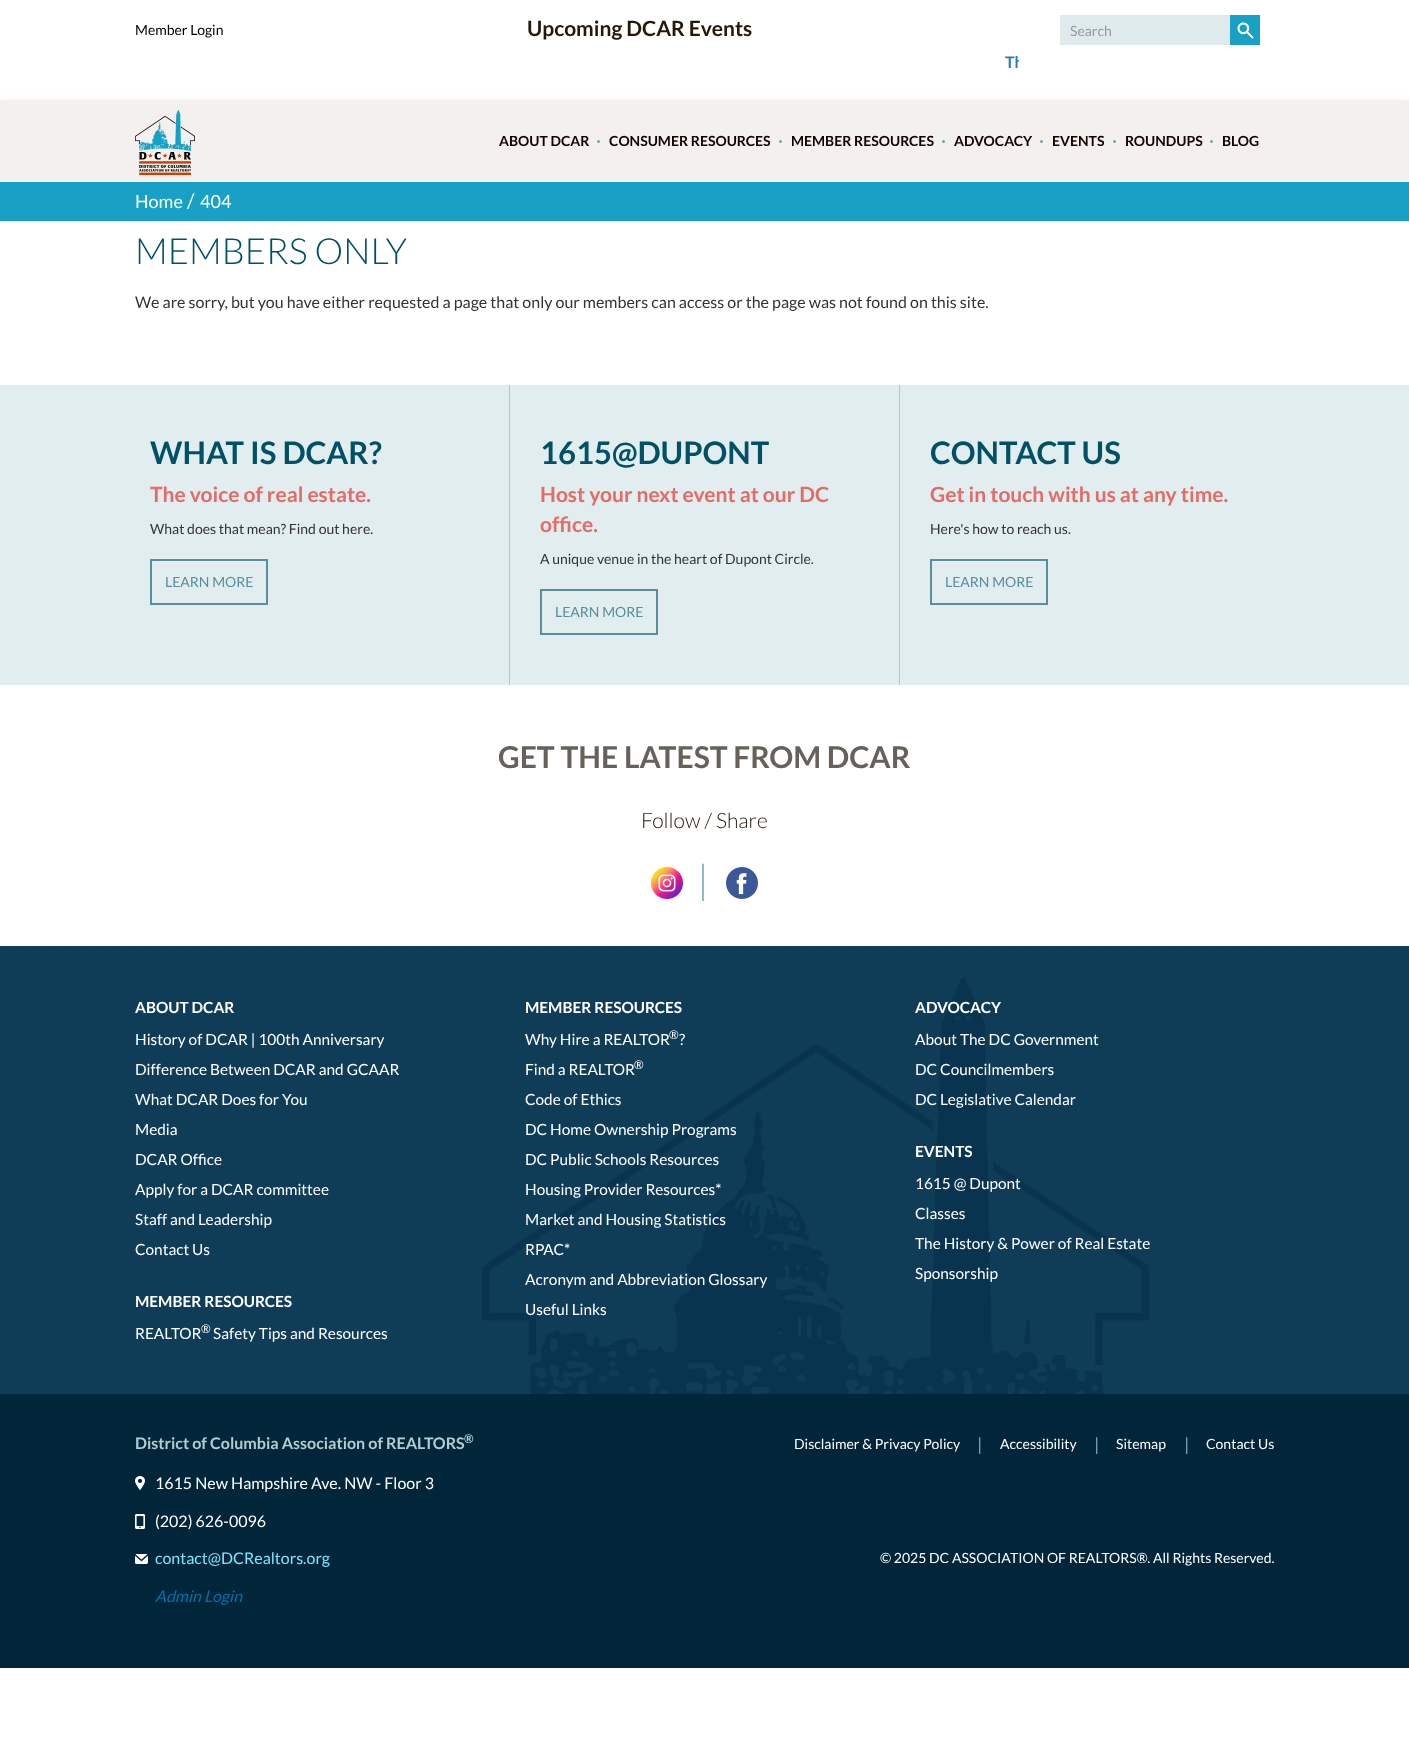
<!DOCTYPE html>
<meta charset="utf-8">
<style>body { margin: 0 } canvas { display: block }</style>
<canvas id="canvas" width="1409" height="1755"></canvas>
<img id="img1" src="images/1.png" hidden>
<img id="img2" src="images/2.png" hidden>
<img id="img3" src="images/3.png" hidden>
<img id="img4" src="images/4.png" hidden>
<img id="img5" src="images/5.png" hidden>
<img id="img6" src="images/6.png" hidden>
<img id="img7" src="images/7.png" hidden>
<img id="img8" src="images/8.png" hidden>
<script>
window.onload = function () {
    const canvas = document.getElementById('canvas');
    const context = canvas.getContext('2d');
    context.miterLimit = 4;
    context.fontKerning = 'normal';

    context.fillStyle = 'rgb(255, 255, 255)';
    context.fillRect(0, 0, 1409, 1755);
    context.fillStyle = 'rgb(223, 234, 237)';
    context.fillRect(1060, 15, 170, 30);
    context.drawImage(document.getElementById('img1'), 1230, 15, 30, 30);
    context.fillStyle = 'rgba(0, 0, 0, 0.2)';
    context.filter = 'blur(6px)';
    context.beginPath();
    context.rect(2, 106, 1405, 78);
    context.fill();
    context.filter = 'none';
    context.fillStyle = 'rgb(243, 240, 237)';
    context.fillRect(0, 100, 1409, 82);
    context.drawImage(document.getElementById('img2'), 135, 110, 60, 65);
    context.fillStyle = 'rgb(117, 166, 179)';
    context.beginPath();
    context.arc(598.5, 141.5, 1.5, 0, 2 * Math.PI);
    context.fill();
    context.beginPath();
    context.arc(780.5, 141.5, 1.5, 0, 2 * Math.PI);
    context.fill();
    context.beginPath();
    context.arc(943.5, 141.5, 1.5, 0, 2 * Math.PI);
    context.fill();
    context.beginPath();
    context.arc(1041.5, 141.5, 1.5, 0, 2 * Math.PI);
    context.fill();
    context.beginPath();
    context.arc(1114.5, 141.5, 1.5, 0, 2 * Math.PI);
    context.fill();
    context.beginPath();
    context.arc(1211.5, 141.5, 1.5, 0, 2 * Math.PI);
    context.fill();
    context.fillStyle = 'rgb(24, 161, 196)';
    context.fillRect(0, 182, 1409, 39);
    context.fillStyle = 'rgb(226, 237, 239)';
    context.fillRect(0, 385, 1409, 300);
    context.fillStyle = 'rgb(172, 202, 209)';
    context.fillRect(509, 385, 1, 300);
    context.strokeStyle = 'rgb(87, 142, 157)';
    context.lineWidth = 2;
    context.strokeRect(151, 560, 116, 44);
    context.fillRect(899, 385, 1, 300);
    context.strokeRect(541, 590, 116, 44);
    context.strokeRect(931, 560, 116, 44);
    context.drawImage(document.getElementById('img3'), 651, 867, 32, 32);
    context.drawImage(document.getElementById('img4'), 726, 867, 32, 32);
    context.fillStyle = 'rgb(15, 61, 87)';
    context.fillRect(0, 946, 1409, 448);
    context.drawImage(document.getElementById('img5'), 482, 978, 667, 416);
    context.fillStyle = 'rgb(1, 38, 58)';
    context.fillRect(0, 1394, 1409, 274);
    context.drawImage(document.getElementById('img6'), 135, 1476, 10, 14);
    context.drawImage(document.getElementById('img7'), 135, 1514, 10, 15);
    context.drawImage(document.getElementById('img8'), 135, 1554, 13, 10);
    context.font = '14px Lato';
    context.fillStyle = 'rgb(0, 0, 0)';
    context.fillText('Member Login', 135, 35);
    context.font = 'bold 21px Lato';
    context.fillStyle = 'rgb(38, 25, 9)';
    context.fillText('Upcoming DCAR Events', 527, 36);
    context.save();
    context.beginPath();
    context.rect(261, 51, 758, 23);
    context.clip();
    context.font = 'bold 16px Lato';
    context.fillStyle = 'rgb(51, 122, 183)';
    context.fillText('Th', 1005, 68);
    context.restore();
    context.font = '14px Lato';
    context.fillStyle = 'rgb(153, 153, 153)';
    context.fillText('Search', 1070, 36);
    context.font = 'bold 14px Lato';
    context.fillStyle = 'rgb(17, 1, 1)';
    context.fillText('ABOUT DCAR', 499, 146);
    context.fillText('CONSUMER RESOURCES', 609, 146);
    context.fillText('MEMBER RESOURCES', 791, 146);
    context.fillText('ADVOCACY', 954, 146);
    context.fillText('EVENTS', 1052, 146);
    context.fillText('ROUNDUPS', 1125, 146);
    context.fillText('BLOG', 1222, 146);
    context.font = '18px Lato';
    context.fillStyle = 'rgb(255, 255, 255)';
    context.fillText('Home', 135, 208);
    context.font = '20px Lato';
    context.fillText('/', 187, 208);
    context.font = '18px Lato';
    context.fillText('404', 200, 208);
    context.font = '300 36px Lato';
    context.fillStyle = 'rgb(0, 81, 102)';
    context.fillText('MEMBERS ONLY', 135, 264);
    context.font = '16px Lato';
    context.fillStyle = 'rgb(51, 51, 51)';
    context.fillText('We are sorry, but you have either requested a page that only our members can access or the page was not found on this site.', 135, 308);
    context.font = 'bold 31px Lato';
    context.fillStyle = 'rgb(0, 81, 102)';
    context.fillText('WHAT IS DCAR?', 150, 464);
    context.font = 'bold 21px Lato';
    context.fillStyle = 'rgb(227, 108, 102)';
    context.fillText('The voice of real estate.', 150, 502);
    context.font = '14px Lato';
    context.fillStyle = 'rgb(51, 51, 51)';
    context.fillText('What does that mean? Find out here.', 150, 534);
    context.fillStyle = 'rgb(87, 142, 157)';
    context.fillText('LEARN MORE', 165, 587);
    context.font = 'bold 31px Lato';
    context.fillStyle = 'rgb(0, 81, 102)';
    context.fillText('1615@DUPONT', 540, 464);
    context.font = 'bold 21px Lato';
    context.fillStyle = 'rgb(227, 108, 102)';
    context.fillText('Host your next event at our DC', 540, 502);
    context.fillText('office.', 540, 532);
    context.font = '14px Lato';
    context.fillStyle = 'rgb(51, 51, 51)';
    context.fillText('A unique venue in the heart of Dupont Circle.', 540, 564);
    context.fillStyle = 'rgb(87, 142, 157)';
    context.fillText('LEARN MORE', 555, 617);
    context.font = 'bold 31px Lato';
    context.fillStyle = 'rgb(0, 81, 102)';
    context.fillText('CONTACT US', 930, 464);
    context.font = 'bold 21px Lato';
    context.fillStyle = 'rgb(227, 108, 102)';
    context.fillText('Get in touch with us at any time.', 930, 502);
    context.font = '14px Lato';
    context.fillStyle = 'rgb(51, 51, 51)';
    context.fillText('Here\'s how to reach us.', 930, 534);
    context.fillStyle = 'rgb(87, 142, 157)';
    context.fillText('LEARN MORE', 945, 587);
    context.font = 'bold 30px Lato';
    context.fillStyle = 'rgb(102, 97, 91)';
    context.fillText('GET THE LATEST FROM DCAR', 498, 768);
    context.font = '300 21px Lato';
    context.fillStyle = 'rgb(38, 25, 9)';
    context.fillText('Follow / Share', 641, 828);
    context.font = '300 40px Lato';
    context.fillStyle = 'rgb(117, 166, 179)';
    context.fillText('|', 697, 894);
    context.font = 'bold 15.4px Lato';
    context.fillStyle = 'rgb(255, 255, 255)';
    context.fillText('ABOUT DCAR', 135, 1013);
    context.font = '15.4px Lato';
    context.fillText('History of DCAR | 100th Anniversary', 135, 1045);
    context.fillText('Difference Between DCAR and GCAAR', 135, 1075);
    context.fillText('What DCAR Does for You', 135, 1105);
    context.fillText('Media', 135, 1135);
    context.fillText('DCAR Office', 135, 1165);
    context.fillText('Apply for a DCAR committee', 135, 1195);
    context.fillText('Staff and Leadership', 135, 1225);
    context.fillText('Contact Us', 135, 1255);
    context.font = 'bold 15.4px Lato';
    context.fillText('MEMBER RESOURCES', 135, 1307);
    context.font = '15.4px Lato';
    context.fillText('REALTOR', 135, 1339);
    context.font = '12px Lato';
    context.fillText('®', 201, 1333);
    context.font = '15.4px Lato';
    context.fillText('Safety Tips and Resources', 213, 1339);
    context.font = 'bold 15.4px Lato';
    context.fillText('MEMBER RESOURCES', 525, 1013);
    context.font = '15.4px Lato';
    context.fillText('Why Hire a REALTOR', 525, 1045);
    context.fillText('?', 679, 1045);
    context.font = '12px Lato';
    context.fillText('®', 669, 1039);
    context.font = '15.4px Lato';
    context.fillText('Find a REALTOR', 525, 1075);
    context.font = '12px Lato';
    context.fillText('®', 634, 1069);
    context.font = '15.4px Lato';
    context.fillText('Code of Ethics', 525, 1105);
    context.fillText('DC Home Ownership Programs', 525, 1135);
    context.fillText('DC Public Schools Resources', 525, 1165);
    context.fillText('Housing Provider Resources*', 525, 1195);
    context.fillText('Market and Housing Statistics', 525, 1225);
    context.fillText('RPAC*', 525, 1255);
    context.fillText('Acronym and Abbreviation Glossary', 525, 1285);
    context.fillText('Useful Links', 525, 1315);
    context.font = 'bold 15.4px Lato';
    context.fillText('ADVOCACY', 915, 1013);
    context.font = '15.4px Lato';
    context.fillText('About The DC Government', 915, 1045);
    context.fillText('DC Councilmembers', 915, 1075);
    context.fillText('DC Legislative Calendar', 915, 1105);
    context.font = 'bold 15.4px Lato';
    context.fillText('EVENTS', 915, 1157);
    context.font = '15.4px Lato';
    context.fillText('1615 @ Dupont', 915, 1189);
    context.fillText('Classes', 915, 1219);
    context.fillText('The History & Power of Real Estate', 915, 1249);
    context.fillText('Sponsorship', 915, 1279);
    context.font = 'bold 16px Lato';
    context.fillStyle = 'rgb(177, 205, 212)';
    context.fillText('District of Columbia Association of REALTORS', 135, 1449);
    context.font = 'bold 12px Lato';
    context.fillText('®', 464, 1443);
    context.font = '16px Lato';
    context.fillStyle = 'rgb(255, 255, 255)';
    context.fillText('1615 New Hampshire Ave. NW - Floor 3', 155, 1489);
    context.fillText('(202) 626-0096', 155, 1527);
    context.fillStyle = 'rgb(126, 228, 255)';
    context.fillText('contact@DCRealtors.org', 155, 1564);
    context.font = 'italic 16px Lato';
    context.fillStyle = 'rgb(3, 113, 172)';
    context.fillText('Admin Login', 155, 1602);
    context.font = '14px Lato';
    context.fillStyle = 'rgb(255, 255, 255)';
    context.fillText('Disclaimer & Privacy Policy', 794, 1449);
    context.font = '18px Lato';
    context.fillStyle = 'rgb(117, 166, 179)';
    context.fillText('|', 977, 1451);
    context.font = '14px Lato';
    context.fillStyle = 'rgb(255, 255, 255)';
    context.fillText('Accessibility', 1000, 1449);
    context.font = '18px Lato';
    context.fillStyle = 'rgb(117, 166, 179)';
    context.fillText('|', 1094, 1451);
    context.font = '14px Lato';
    context.fillStyle = 'rgb(255, 255, 255)';
    context.fillText('Sitemap', 1116, 1449);
    context.font = '18px Lato';
    context.fillStyle = 'rgb(117, 166, 179)';
    context.fillText('|', 1184, 1451);
    context.font = '14px Lato';
    context.fillStyle = 'rgb(255, 255, 255)';
    context.fillText('Contact Us', 1206, 1449);
    context.fillText('© 2025 DC ASSOCIATION OF REALTORS®. All Rights Reserved.', 880, 1563);
};
</script>
